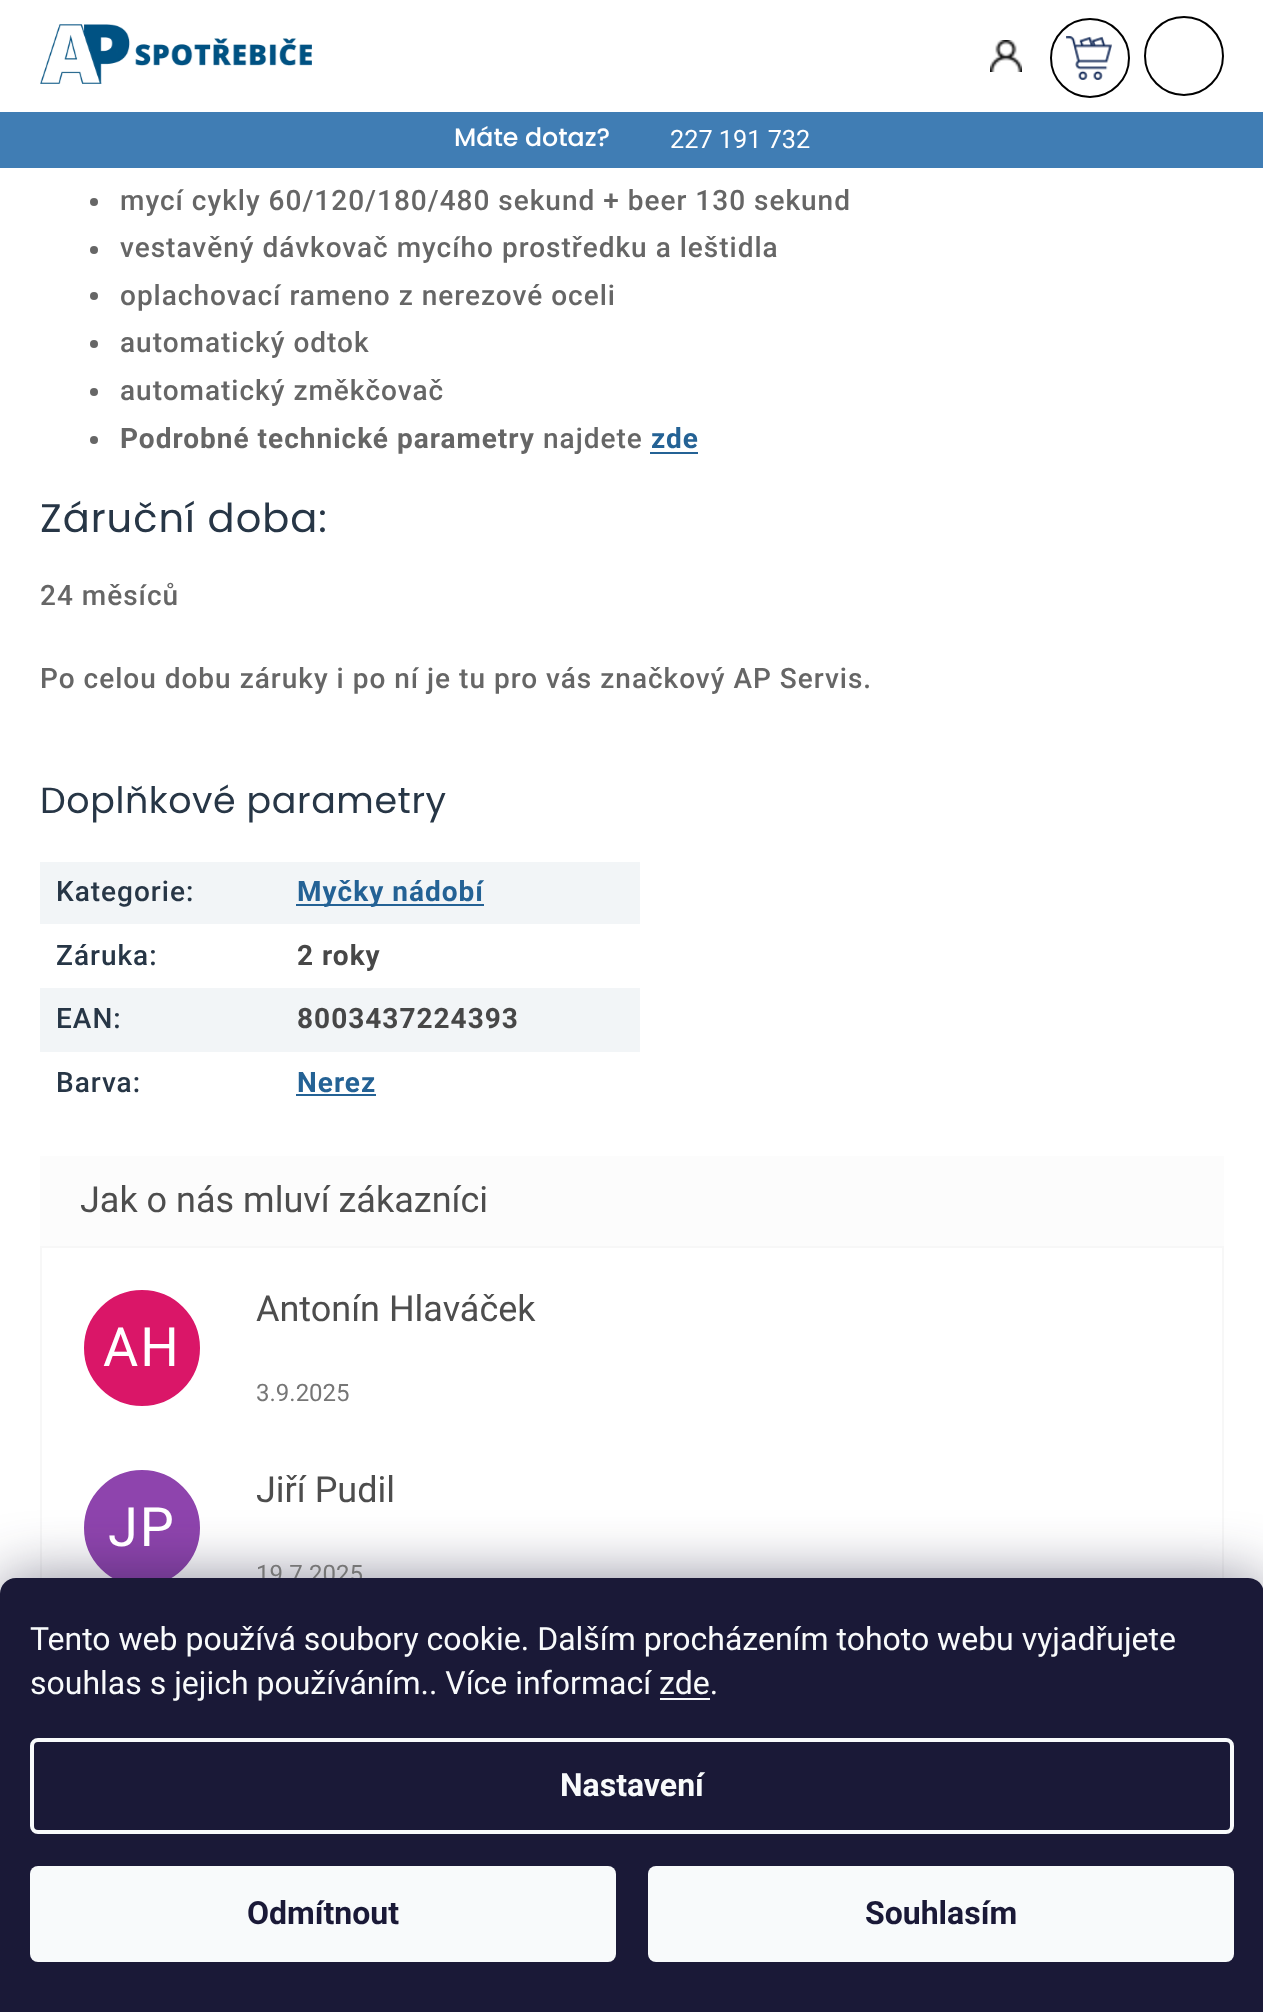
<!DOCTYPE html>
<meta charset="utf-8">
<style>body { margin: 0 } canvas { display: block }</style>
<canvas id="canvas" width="1263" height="2012"></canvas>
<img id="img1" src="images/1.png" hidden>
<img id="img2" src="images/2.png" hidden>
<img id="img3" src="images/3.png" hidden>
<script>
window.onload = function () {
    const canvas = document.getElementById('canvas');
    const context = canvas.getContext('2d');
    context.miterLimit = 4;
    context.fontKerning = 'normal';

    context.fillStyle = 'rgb(255, 255, 255)';
    context.fillRect(0, 0, 1263, 2012);
    context.drawImage(document.getElementById('img1'), 40, 24, 272, 60);
    context.drawImage(document.getElementById('img2'), 1066, 36, 46, 44);
    context.beginPath();
    context.arc(1090, 58, 39, 0, 2 * Math.PI);
    context.strokeStyle = 'rgb(0, 0, 0)';
    context.lineWidth = 2;
    context.stroke();
    context.drawImage(document.getElementById('img3'), 990, 40, 32, 32);
    context.beginPath();
    context.arc(1184, 56, 39, 0, 2 * Math.PI);
    context.stroke();
    context.fillStyle = 'rgb(64, 125, 180)';
    context.fillRect(0, 112, 1263, 56);
    context.fillStyle = 'rgb(102, 102, 102)';
    context.beginPath();
    context.arc(94, 202, 4, 0, 2 * Math.PI);
    context.fill();
    context.beginPath();
    context.arc(94, 250, 4, 0, 2 * Math.PI);
    context.fill();
    context.beginPath();
    context.arc(94, 296, 4, 0, 2 * Math.PI);
    context.fill();
    context.beginPath();
    context.arc(94, 344, 4, 0, 2 * Math.PI);
    context.fill();
    context.beginPath();
    context.arc(94, 392, 4, 0, 2 * Math.PI);
    context.fill();
    context.beginPath();
    context.arc(94, 440, 4, 0, 2 * Math.PI);
    context.fill();
    context.fillStyle = 'rgb(36, 98, 149)';
    context.fillRect(650, 452, 48, 2);
    context.fillStyle = 'rgb(242, 245, 247)';
    context.fillRect(40, 862, 600, 62);
    context.fillStyle = 'rgb(36, 98, 149)';
    context.fillRect(296, 904, 188, 2);
    context.fillStyle = 'rgb(242, 245, 247)';
    context.fillRect(40, 988, 600, 64);
    context.fillStyle = 'rgb(36, 98, 149)';
    context.fillRect(296, 1094, 80, 2);
    context.fillStyle = 'rgb(252, 252, 252)';
    context.fillRect(40, 1156, 1184, 90);
    context.strokeStyle = 'rgb(247, 247, 247)';
    context.strokeRect(41, 1247, 1182, 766);
    context.fillStyle = 'rgb(218, 22, 104)';
    context.beginPath();
    context.arc(142, 1348, 59, 0, 2 * Math.PI);
    context.fill();
    context.strokeStyle = 'rgb(255, 255, 255)';
    context.stroke();
    context.fillStyle = 'rgb(142, 68, 173)';
    context.beginPath();
    context.arc(142, 1528, 59, 0, 2 * Math.PI);
    context.fill();
    context.stroke();
    context.fillStyle = 'rgba(27, 25, 57, 0.5)';
    context.filter = 'blur(30px)';
    context.beginPath();
    context.roundRect(0, 1578, 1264, 434, 16);
    context.fill();
    context.filter = 'none';
    context.font = '500 25.25px Poppins';
    context.fillStyle = 'rgb(255, 255, 255)';
    context.fillText('Máte dotaz?', 454, 146);
    context.font = '25.25px Roboto';
    context.fillText('227 191 732', 670, 148);
    context.letterSpacing = '1px';
    context.font = '500 28px Roboto';
    context.fillStyle = 'rgb(102, 102, 102)';
    context.fillText('mycí cykly 60/120/180/480 sekund + beer 130 sekund', 120, 210);
    context.fillText('vestavěný dávkovač mycího prostředku a leštidla', 120, 257);
    context.fillText('oplachovací rameno z nerezové oceli', 120, 305);
    context.fillText('automatický odtok', 120, 352);
    context.fillText('automatický změkčovač', 120, 400);
    context.font = 'bold 28px Roboto';
    context.fillText('Podrobné technické parametry', 120, 448);
    context.font = '500 28px Roboto';
    context.fillText('najdete', 543, 448);
    context.font = 'bold 28px Roboto';
    context.fillStyle = 'rgb(36, 98, 149)';
    context.fillText('zde', 651, 448);
    context.font = '40px Poppins';
    context.fillStyle = 'rgb(39, 54, 70)';
    context.fillText('Záruční doba:', 40, 532);
    context.font = '500 28px Roboto';
    context.fillStyle = 'rgb(102, 102, 102)';
    context.fillText('24 měsíců', 40, 605);
    context.fillText('Po celou dobu záruky i po ní je tu pro vás značkový AP Servis.', 40, 688);
    context.letterSpacing = '0.6px';
    context.font = '36.4px Poppins';
    context.fillStyle = 'rgb(39, 54, 70)';
    context.fillText('Doplňkové parametry', 40, 813);
    context.letterSpacing = '1px';
    context.font = '500 28px Roboto';
    context.fillText('Kategorie:', 56, 901);
    context.font = 'bold 28px Roboto';
    context.fillStyle = 'rgb(36, 98, 149)';
    context.fillText('Myčky nádobí', 297, 901);
    context.font = '500 28px Roboto';
    context.fillStyle = 'rgb(39, 54, 70)';
    context.fillText('Záruka:', 56, 965);
    context.font = 'bold 28px Roboto';
    context.fillStyle = 'rgb(71, 71, 71)';
    context.fillText('2 roky', 297, 965);
    context.font = '500 28px Roboto';
    context.fillStyle = 'rgb(39, 54, 70)';
    context.fillText('EAN:', 56, 1028);
    context.font = 'bold 28px Roboto';
    context.fillStyle = 'rgb(71, 71, 71)';
    context.fillText('8003437224393', 297, 1028);
    context.font = '500 28px Roboto';
    context.fillStyle = 'rgb(39, 54, 70)';
    context.fillText('Barva:', 56, 1092);
    context.font = 'bold 28px Roboto';
    context.fillStyle = 'rgb(36, 98, 149)';
    context.fillText('Nerez', 297, 1092);
    context.letterSpacing = '0px';
    context.font = '36px Roboto';
    context.fillStyle = 'rgb(77, 77, 77)';
    context.fillText('Jak o nás mluví zákazníci', 80, 1212);
    context.letterSpacing = '2px';
    context.font = '54px Roboto';
    context.fillStyle = 'rgb(255, 255, 255)';
    context.fillText('AH', 103, 1366);
    context.letterSpacing = '0px';
    context.font = '36px Roboto';
    context.fillStyle = 'rgb(77, 77, 77)';
    context.fillText('Antonín Hlaváček', 256, 1321);
    context.font = '24px Roboto';
    context.fillStyle = 'rgb(118, 118, 118)';
    context.fillText('3.9.2025', 256, 1401);
    context.letterSpacing = '2px';
    context.font = '54px Roboto';
    context.fillStyle = 'rgb(255, 255, 255)';
    context.fillText('JP', 108, 1546);
    context.letterSpacing = '0px';
    context.font = '36px Roboto';
    context.fillStyle = 'rgb(77, 77, 77)';
    context.fillText('Jiří Pudil', 256, 1502);
    context.font = '24px Roboto';
    context.fillStyle = 'rgb(118, 118, 118)';
    context.fillText('19.7.2025', 256, 1582);
    context.fillStyle = 'rgb(26, 25, 55)';
    context.beginPath();
    context.moveTo(16, 1578);
    context.lineTo(1248, 1578);
    context.bezierCurveTo(1257, 1578, 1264, 1585, 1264, 1594);
    context.lineTo(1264, 2012);
    context.lineTo(0, 2012);
    context.lineTo(0, 1594);
    context.bezierCurveTo(0, 1585, 7, 1578, 16, 1578);
    context.closePath();
    context.fill();
    context.font = '32px Roboto';
    context.fillStyle = 'rgb(248, 250, 251)';
    context.fillText('Tento web používá soubory cookie. Dalším procházením tohoto webu vyjadřujete', 30, 1650);
    context.fillText('souhlas s jejich používáním.. Více informací zde.', 30, 1694);
    context.fillRect(660, 1698, 50, 2);
    context.beginPath();
    context.roundRect(32, 1740, 1200, 92, 6);
    context.strokeStyle = 'rgb(248, 250, 251)';
    context.lineWidth = 4;
    context.stroke();
    context.font = 'bold 32px Roboto';
    context.fillText('Nastavení', 560, 1796);
    context.beginPath();
    context.roundRect(30, 1866, 586, 96, 8);
    context.fill();
    context.fillStyle = 'rgb(26, 25, 55)';
    context.fillText('Odmítnout', 247, 1924);
    context.fillStyle = 'rgb(248, 250, 251)';
    context.beginPath();
    context.roundRect(648, 1866, 586, 96, 8);
    context.fill();
    context.fillStyle = 'rgb(26, 25, 55)';
    context.fillText('Souhlasím', 865, 1924);
};
</script>
